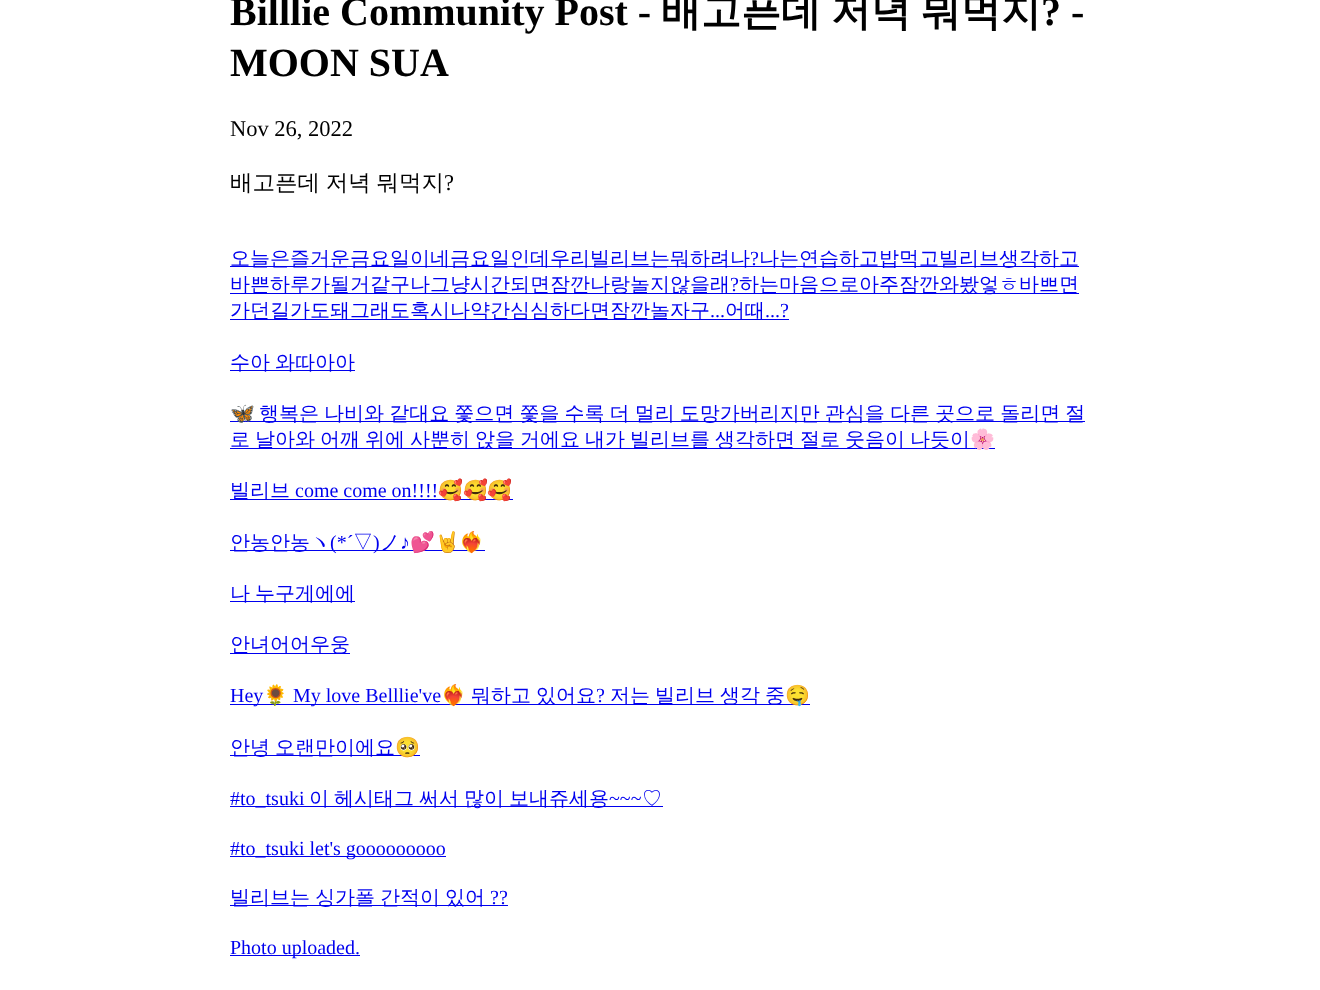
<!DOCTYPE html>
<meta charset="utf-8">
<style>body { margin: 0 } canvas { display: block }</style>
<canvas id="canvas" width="1320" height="990"></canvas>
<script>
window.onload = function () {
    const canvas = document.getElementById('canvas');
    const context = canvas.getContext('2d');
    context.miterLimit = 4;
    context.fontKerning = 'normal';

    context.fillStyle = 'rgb(255, 255, 255)';
    context.fillRect(0, 0, 1320, 990);
    context.fillStyle = 'rgb(0, 0, 238)';
    context.fillRect(230, 266, 849, 1);
    context.fillRect(230, 293, 849, 1);
    context.fillRect(230, 319, 559, 1);
    context.fillRect(230, 370, 125, 1);
    context.fillRect(230, 421, 855, 1);
    context.fillRect(230, 448, 765, 1);
    context.fillRect(230, 499, 283, 1);
    context.fillRect(230, 550, 255, 1);
    context.fillRect(230, 601, 125, 1);
    context.fillRect(230, 653, 120, 1);
    context.fillRect(230, 704, 580, 1);
    context.fillRect(230, 755, 190, 1);
    context.fillRect(230, 806, 433, 1);
    context.fillRect(230, 856, 216, 1);
    context.fillRect(230, 905, 278, 1);
    context.fillRect(230, 955, 130, 1);
    context.font = 'bold 40px Liberation Serif';
    context.fillStyle = 'rgb(0, 0, 0)';
    context.fillText('Billlie Community Post -', 230, 25);
    context.font = 'bold 40px WenQuanYi Zen Hei';
    context.fillText('배고픈데', 661, 25);
    context.fillText('저녁', 831, 25);
    context.fillText('뭐먹지', 921, 25);
    context.font = 'bold 40px Liberation Serif';
    context.fillText('? -', 1041, 25);
    context.fillText('MOON SUA', 230, 76);
    context.font = '22.5px Liberation Serif';
    context.fillText('Nov 26, 2022', 230, 136);
    context.wordSpacing = '-1px';
    context.font = '500 22.5px WenQuanYi Zen Hei';
    context.fillText('배고픈데 저녁 뭐먹지', 230, 190);
    context.wordSpacing = '0px';
    context.font = '22.5px Liberation Serif';
    context.fillText('?', 444, 190);
    context.font = '500 20px WenQuanYi Zen Hei';
    context.fillStyle = 'rgb(0, 0, 238)';
    context.fillText('오늘은즐거운금요일이네금요일인데우리빌리브는뭐하려나', 230, 265);
    context.font = '20px Liberation Serif';
    context.fillText('?', 750, 265);
    context.font = '500 20px WenQuanYi Zen Hei';
    context.fillText('나는연습하고밥먹고빌리브생각하고', 759, 265);
    context.fillText('바쁜하루가될거같구나그냥시간되면잠깐나랑놀지않을래', 230, 291);
    context.font = '20px Liberation Serif';
    context.fillText('?', 730, 291);
    context.font = '500 20px WenQuanYi Zen Hei';
    context.fillText('하는마음으로아주잠깐와봤엏ㅎ바쁘면', 739, 291);
    context.fillText('가던길가도돼그래도혹시나약간심심하다면잠깐놀자구', 230, 317);
    context.font = '20px Liberation Serif';
    context.fillText('...', 710, 317);
    context.font = '500 20px WenQuanYi Zen Hei';
    context.fillText('어때', 725, 317);
    context.font = '20px Liberation Serif';
    context.fillText('...?', 765, 317);
    context.wordSpacing = '-1px';
    context.font = '500 20px WenQuanYi Zen Hei';
    context.fillText('수아 와따아아', 230, 369);
    context.wordSpacing = '0px';
    context.font = '20px Noto Color Emoji';
    context.fillText('🦋', 230, 420);
    context.wordSpacing = '-0.9px';
    context.font = '500 20px WenQuanYi Zen Hei';
    context.fillText('행복은 나비와 같대요 쫓으면 쫓을 수록 더 멀리 도망가버리지만 관심을 다른 곳으로 돌리면 절', 259, 420);
    context.wordSpacing = '-1px';
    context.fillText('로 날아와 어깨 위에 사뿐히 앉을 거에요 내가 빌리브를 생각하면 절로 웃음이 나듯이', 230, 446);
    context.wordSpacing = '0px';
    context.font = '20px Noto Color Emoji';
    context.fillText('🌸', 970, 446);
    context.font = '500 20px WenQuanYi Zen Hei';
    context.fillText('빌리브', 230, 497);
    context.font = '20px Liberation Serif';
    context.fillText('come come on!!!!', 295, 497);
    context.font = '20px Noto Color Emoji';
    context.fillText('🥰🥰🥰', 438, 497);
    context.font = '500 20px WenQuanYi Zen Hei';
    context.fillText('안농안농ヽ', 230, 549);
    context.font = '20px Liberation Serif';
    context.fillText('(*´', 330, 549);
    context.font = '500 20px WenQuanYi Zen Hei';
    context.fillText('▽', 353, 549);
    context.font = '20px Liberation Serif';
    context.fillText(')', 373, 549);
    context.font = '500 20px WenQuanYi Zen Hei';
    context.fillText('ノ', 380, 549);
    context.font = '20px Liberation Serif';
    context.fillText('♪', 400, 549);
    context.font = '20px Noto Color Emoji';
    context.fillText('💕🤘❤️‍🔥', 410, 549);
    context.wordSpacing = '-1px';
    context.font = '500 20px WenQuanYi Zen Hei';
    context.fillText('나 누구게에에', 230, 600);
    context.wordSpacing = '0px';
    context.fillText('안녀어어우웅', 230, 651);
    context.font = '20px Liberation Serif';
    context.fillText('Hey', 230, 702);
    context.font = '20px Noto Color Emoji';
    context.fillText('🌻', 263, 702);
    context.font = '20px Liberation Serif';
    context.fillText('My love Belllie\'ve', 293, 702);
    context.font = '20px Noto Color Emoji';
    context.fillText('❤️‍🔥', 441, 702);
    context.font = '500 20px WenQuanYi Zen Hei';
    context.fillText('뭐하고', 471, 702);
    context.fillText('있어요', 536, 702);
    context.font = '20px Liberation Serif';
    context.fillText('?', 596, 702);
    context.font = '500 20px WenQuanYi Zen Hei';
    context.fillText('저는', 610, 702);
    context.fillText('빌리브', 655, 702);
    context.fillText('생각', 720, 702);
    context.fillText('중', 765, 702);
    context.font = '20px Noto Color Emoji';
    context.fillText('🤤', 785, 702);
    context.wordSpacing = '-1px';
    context.font = '500 20px WenQuanYi Zen Hei';
    context.fillText('안녕 오랜만이에요', 230, 754);
    context.wordSpacing = '0px';
    context.font = '20px Noto Color Emoji';
    context.fillText('🥺', 395, 754);
    context.font = '20px Liberation Serif';
    context.fillText('#to_tsuki', 230, 805);
    context.wordSpacing = '-1px';
    context.font = '500 20px WenQuanYi Zen Hei';
    context.fillText('이 헤시태그 써서 많이 보내쥬세용', 309, 805);
    context.wordSpacing = '0px';
    context.font = '20px Liberation Serif';
    context.fillText('~~~', 609, 805);
    context.font = '500 20px WenQuanYi Zen Hei';
    context.fillText('♡', 642, 805);
    context.font = '20px Liberation Serif';
    context.fillText('#to_tsuki let\'s gooooooooo', 230, 855);
    context.wordSpacing = '-1px';
    context.font = '500 20px WenQuanYi Zen Hei';
    context.fillText('빌리브는 싱가폴 간적이 있어', 230, 904);
    context.wordSpacing = '0px';
    context.font = '20px Liberation Serif';
    context.fillText('??', 490, 904);
    context.fillText('Photo uploaded.', 230, 954);
};
</script>
